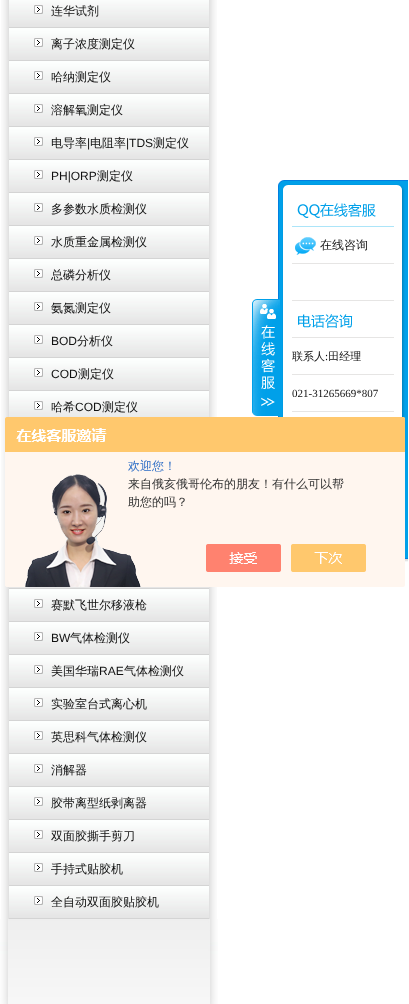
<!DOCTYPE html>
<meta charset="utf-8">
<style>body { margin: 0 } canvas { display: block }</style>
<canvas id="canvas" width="409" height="1004"></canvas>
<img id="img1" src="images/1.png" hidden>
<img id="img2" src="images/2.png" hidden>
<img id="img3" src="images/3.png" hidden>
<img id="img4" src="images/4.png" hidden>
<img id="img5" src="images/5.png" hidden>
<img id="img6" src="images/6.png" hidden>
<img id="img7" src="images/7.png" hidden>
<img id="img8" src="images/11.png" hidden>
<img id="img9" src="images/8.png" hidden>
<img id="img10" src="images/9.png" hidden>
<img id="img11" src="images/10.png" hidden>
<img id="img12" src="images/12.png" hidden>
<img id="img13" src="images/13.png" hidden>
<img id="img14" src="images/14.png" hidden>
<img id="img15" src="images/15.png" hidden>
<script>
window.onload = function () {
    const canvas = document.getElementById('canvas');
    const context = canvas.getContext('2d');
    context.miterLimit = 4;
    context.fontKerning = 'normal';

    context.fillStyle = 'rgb(255, 255, 255)';
    context.fillRect(0, 0, 409, 1004);
    context.drawImage(document.getElementById('img1'), 0, 919, 218, 85);
    context.drawImage(document.getElementById('img2'), 1, 0, 216, 919);
    context.drawImage(document.getElementById('img3'), 9, 0, 200, 28);
    context.drawImage(document.getElementById('img4'), 34, 5, 9, 9);
    context.drawImage(document.getElementById('img5'), 9, 28, 200, 33);
    context.drawImage(document.getElementById('img4'), 34, 38, 9, 9);
    context.drawImage(document.getElementById('img5'), 9, 61, 200, 33);
    context.drawImage(document.getElementById('img4'), 34, 71, 9, 9);
    context.drawImage(document.getElementById('img5'), 9, 94, 200, 33);
    context.drawImage(document.getElementById('img4'), 34, 104, 9, 9);
    context.drawImage(document.getElementById('img5'), 9, 127, 200, 33);
    context.drawImage(document.getElementById('img4'), 34, 137, 9, 9);
    context.drawImage(document.getElementById('img5'), 9, 160, 200, 33);
    context.drawImage(document.getElementById('img4'), 34, 170, 9, 9);
    context.drawImage(document.getElementById('img5'), 9, 193, 200, 33);
    context.drawImage(document.getElementById('img4'), 34, 203, 9, 9);
    context.drawImage(document.getElementById('img5'), 9, 226, 200, 33);
    context.drawImage(document.getElementById('img4'), 34, 236, 9, 9);
    context.drawImage(document.getElementById('img5'), 9, 259, 200, 33);
    context.drawImage(document.getElementById('img4'), 34, 269, 9, 9);
    context.drawImage(document.getElementById('img5'), 9, 292, 200, 33);
    context.drawImage(document.getElementById('img4'), 34, 302, 9, 9);
    context.drawImage(document.getElementById('img5'), 9, 325, 200, 33);
    context.drawImage(document.getElementById('img4'), 34, 335, 9, 9);
    context.drawImage(document.getElementById('img5'), 9, 358, 200, 33);
    context.drawImage(document.getElementById('img4'), 34, 368, 9, 9);
    context.drawImage(document.getElementById('img6'), 9, 391, 200, 26);
    context.drawImage(document.getElementById('img4'), 34, 401, 9, 9);
    context.drawImage(document.getElementById('img7'), 9, 587, 200, 2);
    context.drawImage(document.getElementById('img5'), 9, 589, 200, 33);
    context.drawImage(document.getElementById('img4'), 34, 599, 9, 9);
    context.drawImage(document.getElementById('img5'), 9, 622, 200, 33);
    context.drawImage(document.getElementById('img4'), 34, 632, 9, 9);
    context.drawImage(document.getElementById('img5'), 9, 655, 200, 33);
    context.drawImage(document.getElementById('img4'), 34, 665, 9, 9);
    context.drawImage(document.getElementById('img5'), 9, 688, 200, 33);
    context.drawImage(document.getElementById('img4'), 34, 698, 9, 9);
    context.drawImage(document.getElementById('img5'), 9, 721, 200, 33);
    context.drawImage(document.getElementById('img4'), 34, 731, 9, 9);
    context.drawImage(document.getElementById('img5'), 9, 754, 200, 33);
    context.drawImage(document.getElementById('img4'), 34, 764, 9, 9);
    context.drawImage(document.getElementById('img5'), 9, 787, 200, 33);
    context.drawImage(document.getElementById('img4'), 34, 797, 9, 9);
    context.drawImage(document.getElementById('img5'), 9, 820, 200, 33);
    context.drawImage(document.getElementById('img4'), 34, 830, 9, 9);
    context.drawImage(document.getElementById('img5'), 9, 853, 200, 33);
    context.drawImage(document.getElementById('img4'), 34, 863, 9, 9);
    context.drawImage(document.getElementById('img5'), 9, 886, 200, 33);
    context.drawImage(document.getElementById('img4'), 34, 896, 9, 9);
    context.drawImage(document.getElementById('img8'), 278, 190, 130, 360);
    context.drawImage(document.getElementById('img9'), 252, 299, 28, 117);
    context.drawImage(document.getElementById('img10'), 405, 550, 3, 12);
    context.drawImage(document.getElementById('img11'), 278, 180, 130, 10);
    context.fillStyle = 'rgb(172, 229, 249)';
    context.fillRect(292, 226, 102, 1);
    context.drawImage(document.getElementById('img12'), 297, 203, 79, 15);
    context.fillStyle = 'rgb(230, 229, 228)';
    context.fillRect(292, 263, 102, 1);
    context.drawImage(document.getElementById('img13'), 295, 237, 21, 18);
    context.fillRect(292, 300, 102, 1);
    context.fillRect(292, 337, 102, 1);
    context.drawImage(document.getElementById('img14'), 298, 314, 55, 14);
    context.fillRect(292, 374, 102, 1);
    context.fillRect(292, 411, 102, 1);
    context.drawImage(document.getElementById('img15'), 5, 417, 400, 170);
    context.font = '500 12px WenQuanYi Zen Hei';
    context.fillStyle = 'rgb(17, 17, 17)';
    context.fillText('连华试剂', 51, 15);
    context.fillText('离子浓度测定仪', 51, 48);
    context.fillText('哈纳测定仪', 51, 81);
    context.fillText('溶解氧测定仪', 51, 114);
    context.fillText('电导率', 51, 147);
    context.font = '12px Liberation Sans';
    context.fillText('|', 87, 147);
    context.font = '500 12px WenQuanYi Zen Hei';
    context.fillText('电阻率', 90, 147);
    context.font = '12px Liberation Sans';
    context.fillText('|TDS', 126, 147);
    context.font = '500 12px WenQuanYi Zen Hei';
    context.fillText('测定仪', 153, 147);
    context.font = '12px Liberation Sans';
    context.fillText('PH|ORP', 51, 180);
    context.font = '500 12px WenQuanYi Zen Hei';
    context.fillText('测定仪', 97, 180);
    context.fillText('多参数水质检测仪', 51, 213);
    context.fillText('水质重金属检测仪', 51, 246);
    context.fillText('总磷分析仪', 51, 279);
    context.fillText('氨氮测定仪', 51, 312);
    context.font = '12px Liberation Sans';
    context.fillText('BOD', 51, 345);
    context.font = '500 12px WenQuanYi Zen Hei';
    context.fillText('分析仪', 77, 345);
    context.font = '12px Liberation Sans';
    context.fillText('COD', 51, 378);
    context.font = '500 12px WenQuanYi Zen Hei';
    context.fillText('测定仪', 78, 378);
    context.fillText('哈希', 51, 411);
    context.font = '12px Liberation Sans';
    context.fillText('COD', 75, 411);
    context.font = '500 12px WenQuanYi Zen Hei';
    context.fillText('测定仪', 102, 411);
    context.fillText('赛默飞世尔移液枪', 51, 609);
    context.font = '12px Liberation Sans';
    context.fillText('BW', 51, 642);
    context.font = '500 12px WenQuanYi Zen Hei';
    context.fillText('气体检测仪', 70, 642);
    context.fillText('美国华瑞', 51, 675);
    context.font = '12px Liberation Sans';
    context.fillText('RAE', 99, 675);
    context.font = '500 12px WenQuanYi Zen Hei';
    context.fillText('气体检测仪', 124, 675);
    context.fillText('实验室台式离心机', 51, 708);
    context.fillText('英思科气体检测仪', 51, 741);
    context.fillText('消解器', 51, 774);
    context.fillText('胶带离型纸剥离器', 51, 807);
    context.fillText('双面胶撕手剪刀', 51, 840);
    context.fillText('手持式贴胶机', 51, 873);
    context.fillText('全自动双面胶贴胶机', 51, 906);
    context.fillText('在线咨询', 320, 249);
    context.font = '500 11px WenQuanYi Zen Hei';
    context.fillText('联系人 田经理', 292, 360);
    context.font = '11px Liberation Serif';
    context.fillText(':', 325, 360);
    context.fillText('021-31265669*807', 292, 397);
    context.font = '500 12px WenQuanYi Zen Hei';
    context.fillStyle = 'rgb(46, 110, 198)';
    context.fillText('欢迎您！', 128, 470);
    context.fillStyle = 'rgb(51, 51, 51)';
    context.fillText('来自俄亥俄哥伦布的朋友！有什么可以帮', 128, 488);
    context.fillText('助您的吗？', 128, 506);
};
</script>
